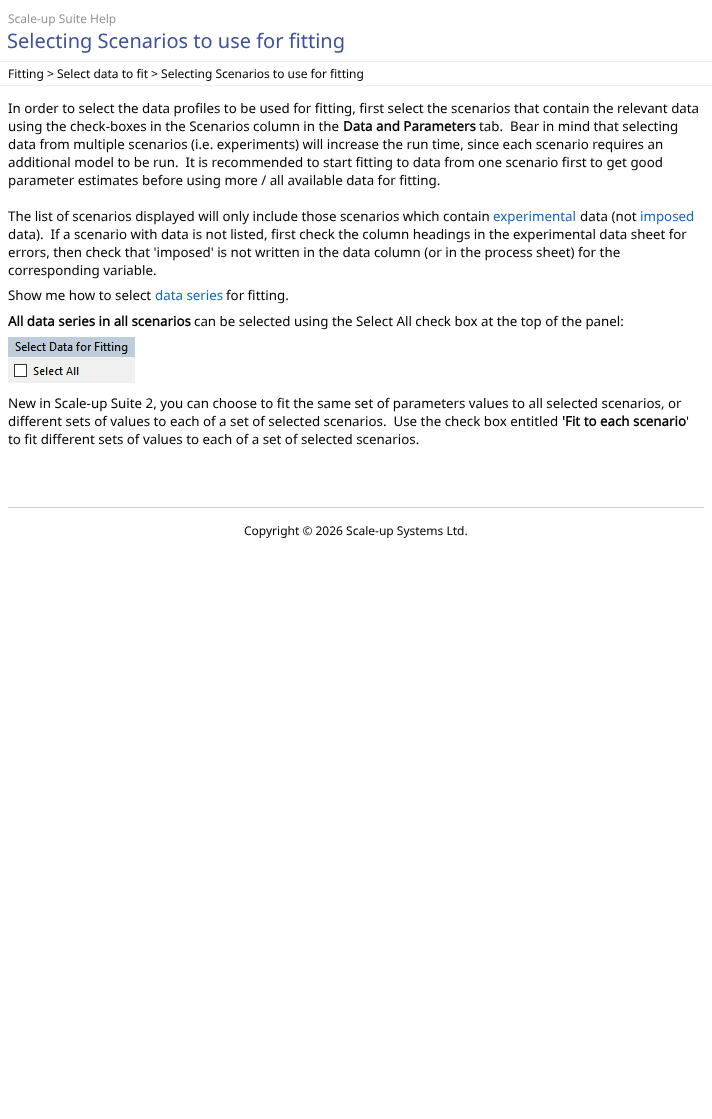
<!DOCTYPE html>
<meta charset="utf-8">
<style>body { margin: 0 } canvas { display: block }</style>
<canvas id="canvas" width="712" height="1119"></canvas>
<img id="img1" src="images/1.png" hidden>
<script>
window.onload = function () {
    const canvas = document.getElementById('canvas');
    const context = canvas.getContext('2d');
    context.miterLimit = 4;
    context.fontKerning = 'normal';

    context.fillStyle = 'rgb(255, 255, 255)';
    context.fillRect(0, 0, 712, 1119);
    context.fillStyle = 'rgb(240, 240, 240)';
    context.fillRect(0, 61, 712, 1);
    context.fillRect(0, 85, 712, 1);
    context.drawImage(document.getElementById('img1'), 8, 337, 127, 46);
    context.fillStyle = 'rgb(208, 208, 208)';
    context.fillRect(8, 507, 696, 1);
    context.font = '12px Noto Sans';
    context.fillStyle = 'rgb(148, 148, 148)';
    context.fillText('Scale-up Suite Help', 8, 23);
    context.font = '20px Noto Sans';
    context.fillStyle = 'rgb(63, 82, 156)';
    context.fillText('Selecting Scenarios to use for fitting', 7, 48);
    context.font = '12px Noto Sans';
    context.fillStyle = 'rgb(0, 0, 0)';
    context.fillText('Fitting > Select data to fit > Selecting Scenarios to use for fitting', 8, 78);
    context.font = '13.33px Noto Sans';
    context.fillText('In order to select the data profiles to be used for fitting, first select the scenarios that contain the relevant data', 8, 113);
    context.fillText('using the check-boxes in the Scenarios column in the', 8, 131);
    context.font = 'bold 13.33px Noto Sans';
    context.fillText('Data and Parameters', 343, 131);
    context.font = '13.33px Noto Sans';
    context.fillText('tab.  Bear in mind that selecting', 479, 131);
    context.fillText('data from multiple scenarios (i.e. experiments) will increase the run time, since each scenario requires an', 8, 149);
    context.fillText('additional model to be run.  It is recommended to start fitting to data from one scenario first to get good', 8, 167);
    context.fillText('parameter estimates before using more / all available data for fitting.', 8, 185);
    context.fillText('The list of scenarios displayed will only include those scenarios which contain', 8, 221);
    context.fillStyle = 'rgb(19, 100, 196)';
    context.fillText('experimental', 493, 221);
    context.fillStyle = 'rgb(0, 0, 0)';
    context.fillText('data (not', 580, 221);
    context.fillStyle = 'rgb(19, 100, 196)';
    context.fillText('imposed', 640, 221);
    context.fillStyle = 'rgb(0, 0, 0)';
    context.fillText('data).  If a scenario with data is not listed, first check the column headings in the experimental data sheet for', 8, 239);
    context.fillText('errors, then check that \'imposed\' is not written in the data column (or in the process sheet) for the', 8, 257);
    context.fillText('corresponding variable.', 8, 275);
    context.fillText('Show me how to select', 8, 300);
    context.fillStyle = 'rgb(19, 100, 196)';
    context.fillText('data series', 155, 300);
    context.fillStyle = 'rgb(0, 0, 0)';
    context.fillText('for fitting.', 226, 300);
    context.font = 'bold 13.33px Noto Sans';
    context.fillText('All data series in all scenarios', 8, 326);
    context.font = '13.33px Noto Sans';
    context.fillText('can be selected using the Select All check box at the top of the panel:', 194, 326);
    context.fillText('New in Scale-up Suite 2, you can choose to fit the same set of parameters values to all selected scenarios, or', 8, 408);
    context.fillText('different sets of values to each of a set of selected scenarios.  Use the check box entitled', 8, 426);
    context.font = 'bold 13.33px Noto Sans';
    context.fillText('\'Fit to each scenario', 562, 426);
    context.font = '13.33px Noto Sans';
    context.fillText('\'', 686, 426);
    context.fillText('to fit different sets of values to each of a set of selected scenarios.', 8, 444);
    context.font = '12px Noto Sans';
    context.fillText('Copyright © 2026 Scale-up Systems Ltd.', 244, 535);
};
</script>
